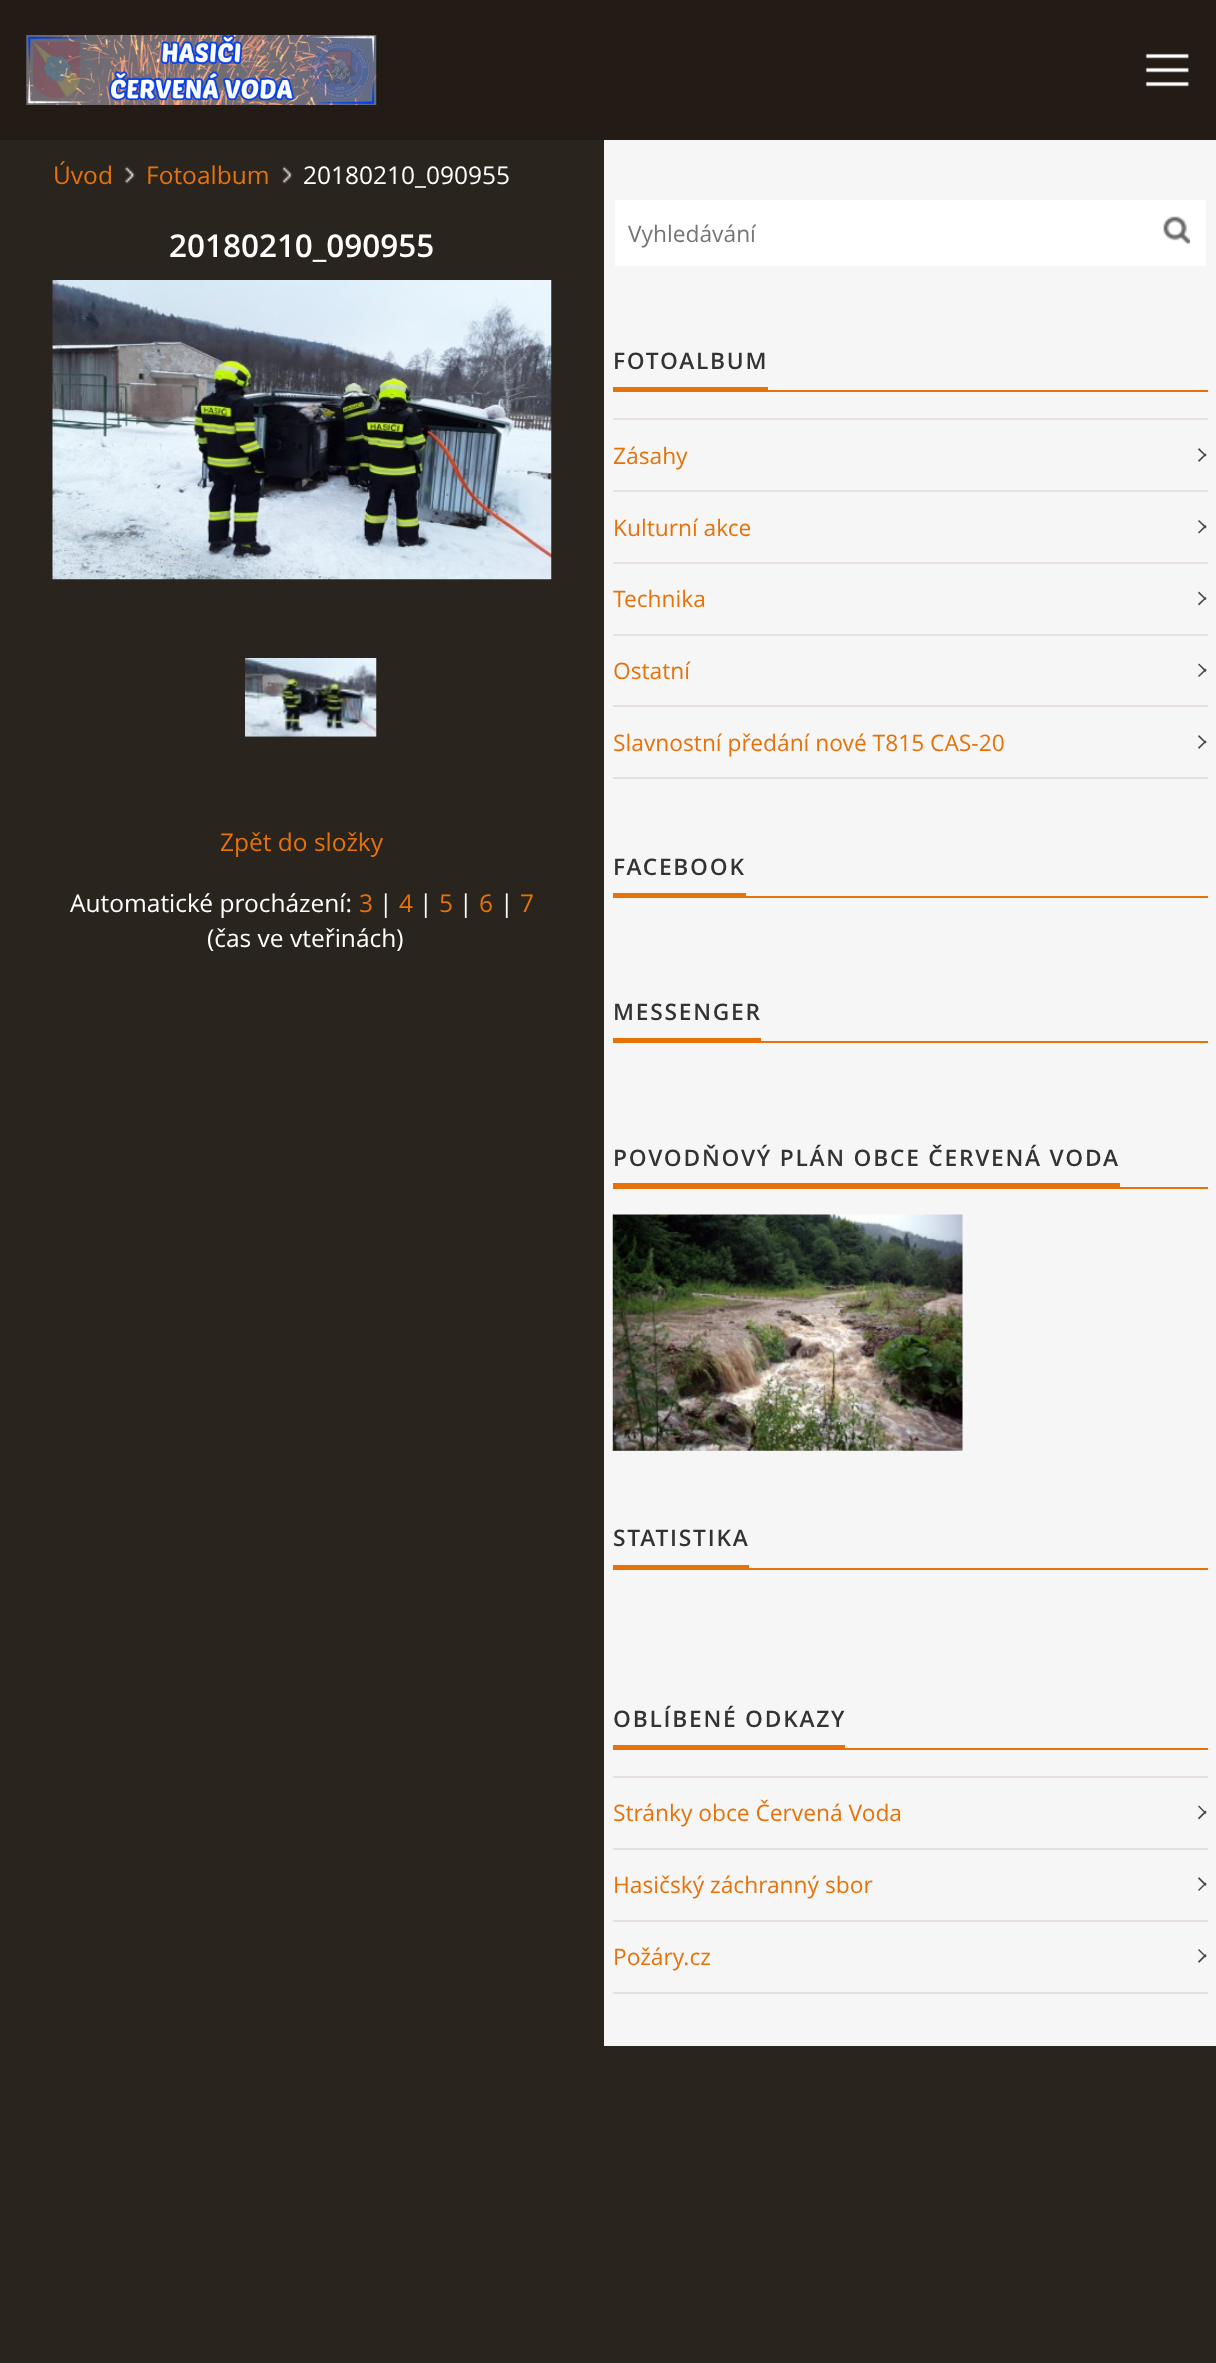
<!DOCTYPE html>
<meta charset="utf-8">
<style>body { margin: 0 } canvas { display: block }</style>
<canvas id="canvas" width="1216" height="2363"></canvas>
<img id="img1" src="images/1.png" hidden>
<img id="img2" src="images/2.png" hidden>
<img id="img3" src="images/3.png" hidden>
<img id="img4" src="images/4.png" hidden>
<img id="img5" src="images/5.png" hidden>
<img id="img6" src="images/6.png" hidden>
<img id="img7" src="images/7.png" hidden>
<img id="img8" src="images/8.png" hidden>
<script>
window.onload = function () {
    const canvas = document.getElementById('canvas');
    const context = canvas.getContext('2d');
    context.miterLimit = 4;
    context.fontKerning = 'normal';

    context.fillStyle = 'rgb(41, 36, 30)';
    context.fillRect(0, 0, 1216, 2363);
    context.fillStyle = 'rgb(34, 27, 22)';
    context.fillRect(0, 0, 1216, 140);
    context.drawImage(document.getElementById('img1'), 26, 35, 351, 70);
    context.drawImage(document.getElementById('img2'), 1145, 53, 44, 34);
    context.drawImage(document.getElementById('img3'), 124, 166, 11, 18);
    context.drawImage(document.getElementById('img4'), 281, 166, 12, 18);
    context.drawImage(document.getElementById('img5'), 52, 280, 500, 300);
    context.drawImage(document.getElementById('img6'), 245, 658, 132, 79);
    context.fillStyle = 'rgb(246, 246, 246)';
    context.fillRect(604, 140, 612, 1906);
    context.fillStyle = 'rgb(255, 255, 255)';
    context.fillRect(615, 200, 591, 66);
    context.drawImage(document.getElementById('img7'), 1163, 216, 27, 28);
    context.fillStyle = 'rgb(230, 114, 9)';
    context.fillRect(613, 387, 155, 3);
    context.fillRect(613, 390, 595, 2);
    context.fillStyle = 'rgb(232, 223, 223)';
    context.fillRect(613, 418, 595, 2);
    context.fillRect(613, 490, 595, 2);
    context.fillStyle = 'rgb(72, 72, 72)';
    context.beginPath();
    context.moveTo(1199, 448);
    context.lineTo(1206.5, 455.5);
    context.lineTo(1205.5, 456.5);
    context.lineTo(1198, 449.5);
    context.closePath();
    context.fill();
    context.beginPath();
    context.moveTo(1198, 460.5);
    context.lineTo(1205.5, 453.5);
    context.lineTo(1206.5, 454.5);
    context.lineTo(1199, 462);
    context.closePath();
    context.fill();
    context.fillStyle = 'rgb(232, 223, 223)';
    context.fillRect(613, 562, 595, 2);
    context.fillStyle = 'rgb(72, 72, 72)';
    context.beginPath();
    context.moveTo(1199, 520);
    context.lineTo(1206.5, 527);
    context.lineTo(1205.5, 528.5);
    context.lineTo(1198, 521);
    context.closePath();
    context.fill();
    context.beginPath();
    context.moveTo(1198, 532.5);
    context.lineTo(1205.5, 525);
    context.lineTo(1206.5, 526.5);
    context.lineTo(1199, 533.5);
    context.closePath();
    context.fill();
    context.fillStyle = 'rgb(232, 223, 223)';
    context.fillRect(613, 634, 595, 2);
    context.fillStyle = 'rgb(72, 72, 72)';
    context.beginPath();
    context.moveTo(1199, 591.5);
    context.lineTo(1206.5, 599);
    context.lineTo(1205.5, 600);
    context.lineTo(1198, 593);
    context.closePath();
    context.fill();
    context.beginPath();
    context.moveTo(1198, 604);
    context.lineTo(1205.5, 597);
    context.lineTo(1206.5, 598);
    context.lineTo(1199, 605.5);
    context.closePath();
    context.fill();
    context.fillStyle = 'rgb(232, 223, 223)';
    context.fillRect(613, 705, 595, 2);
    context.fillStyle = 'rgb(72, 72, 72)';
    context.beginPath();
    context.moveTo(1199, 663.5);
    context.lineTo(1206.5, 670.5);
    context.lineTo(1205.5, 672);
    context.lineTo(1198, 664.5);
    context.closePath();
    context.fill();
    context.beginPath();
    context.moveTo(1198, 676);
    context.lineTo(1205.5, 668.5);
    context.lineTo(1206.5, 670);
    context.lineTo(1199, 677);
    context.closePath();
    context.fill();
    context.fillStyle = 'rgb(232, 223, 223)';
    context.fillRect(613, 777, 595, 2);
    context.fillStyle = 'rgb(72, 72, 72)';
    context.beginPath();
    context.moveTo(1199, 735);
    context.lineTo(1206.5, 742.5);
    context.lineTo(1205.5, 743.5);
    context.lineTo(1198, 736.5);
    context.closePath();
    context.fill();
    context.beginPath();
    context.moveTo(1198, 747.5);
    context.lineTo(1205.5, 740.5);
    context.lineTo(1206.5, 741.5);
    context.lineTo(1199, 749);
    context.closePath();
    context.fill();
    context.fillStyle = 'rgb(230, 114, 9)';
    context.fillRect(613, 893, 133, 3);
    context.fillRect(613, 896, 595, 2);
    context.fillRect(613, 1038, 148, 3);
    context.fillRect(613, 1041, 595, 2);
    context.fillRect(613, 1183, 507, 4);
    context.fillRect(613, 1187, 595, 2);
    context.drawImage(document.getElementById('img8'), 612, 1214, 351, 237);
    context.fillRect(613, 1565, 136, 3);
    context.fillRect(613, 1568, 595, 2);
    context.fillRect(613, 1745, 232, 3);
    context.fillRect(613, 1748, 595, 2);
    context.fillStyle = 'rgb(232, 223, 223)';
    context.fillRect(613, 1776, 595, 2);
    context.fillRect(613, 1848, 595, 2);
    context.fillStyle = 'rgb(72, 72, 72)';
    context.beginPath();
    context.moveTo(1199, 1805.5);
    context.lineTo(1206.5, 1813);
    context.lineTo(1205.5, 1814);
    context.lineTo(1198, 1806.5);
    context.closePath();
    context.fill();
    context.beginPath();
    context.moveTo(1198, 1818);
    context.lineTo(1205.5, 1810.5);
    context.lineTo(1206.5, 1812);
    context.lineTo(1199, 1819.5);
    context.closePath();
    context.fill();
    context.fillStyle = 'rgb(232, 223, 223)';
    context.fillRect(613, 1920, 595, 2);
    context.fillStyle = 'rgb(72, 72, 72)';
    context.beginPath();
    context.moveTo(1199, 1877);
    context.lineTo(1206.5, 1884.5);
    context.lineTo(1205.5, 1886);
    context.lineTo(1198, 1878.5);
    context.closePath();
    context.fill();
    context.beginPath();
    context.moveTo(1198, 1890);
    context.lineTo(1205.5, 1882.5);
    context.lineTo(1206.5, 1883.5);
    context.lineTo(1199, 1891);
    context.closePath();
    context.fill();
    context.fillStyle = 'rgb(232, 223, 223)';
    context.fillRect(613, 1992, 595, 2);
    context.fillStyle = 'rgb(72, 72, 72)';
    context.beginPath();
    context.moveTo(1199, 1949);
    context.lineTo(1206.5, 1956.5);
    context.lineTo(1205.5, 1957.5);
    context.lineTo(1198, 1950);
    context.closePath();
    context.fill();
    context.beginPath();
    context.moveTo(1198, 1961.5);
    context.lineTo(1205.5, 1954);
    context.lineTo(1206.5, 1955.5);
    context.lineTo(1199, 1963);
    context.closePath();
    context.fill();
    context.font = '24.5px Open Sans';
    context.fillStyle = 'rgb(230, 114, 9)';
    context.fillText('Úvod', 53, 184);
    context.fillText('Fotoalbum', 146, 184);
    context.fillStyle = 'rgb(255, 255, 255)';
    context.fillText('20180210_090955', 303, 184);
    context.font = '600 31.5px Open Sans';
    context.fillText('20180210_090955', 169, 257);
    context.font = '24.5px Open Sans';
    context.fillStyle = 'rgb(230, 114, 9)';
    context.fillText('Zpět do složky', 220, 851);
    context.fillStyle = 'rgb(255, 255, 255)';
    context.fillText('Automatické procházení:', 70, 912);
    context.fillStyle = 'rgb(230, 114, 9)';
    context.fillText('3', 359, 912);
    context.fillStyle = 'rgb(255, 255, 255)';
    context.fillText('|', 379, 912);
    context.fillStyle = 'rgb(230, 114, 9)';
    context.fillText('4', 399, 912);
    context.fillStyle = 'rgb(255, 255, 255)';
    context.fillText('|', 419, 912);
    context.fillStyle = 'rgb(230, 114, 9)';
    context.fillText('5', 439, 912);
    context.fillStyle = 'rgb(255, 255, 255)';
    context.fillText('|', 459, 912);
    context.fillStyle = 'rgb(230, 114, 9)';
    context.fillText('6', 479, 912);
    context.fillStyle = 'rgb(255, 255, 255)';
    context.fillText('|', 500, 912);
    context.fillStyle = 'rgb(230, 114, 9)';
    context.fillText('7', 520, 912);
    context.fillStyle = 'rgb(255, 255, 255)';
    context.fillText('(čas ve vteřinách)', 207, 947);
    context.font = '22.75px Open Sans';
    context.fillStyle = 'rgb(117, 117, 117)';
    context.fillText('Vyhledávání', 628, 242);
    context.letterSpacing = '1.75px';
    context.font = '600 22.75px Open Sans';
    context.fillStyle = 'rgb(51, 51, 51)';
    context.fillText('FOTOALBUM', 613, 369);
    context.letterSpacing = '0px';
    context.font = '22.75px Open Sans';
    context.fillStyle = 'rgb(230, 114, 9)';
    context.fillText('Zásahy', 613, 464);
    context.fillText('Kulturní akce', 613, 536);
    context.save();
    context.beginPath();
    context.rect(613, 140, 595, 1906);
    context.clip();
    context.fillText('Technika', 613, 607);
    context.restore();
    context.fillText('Ostatní', 613, 679);
    context.fillText('Slavnostní předání nové T815 CAS-20', 613, 751);
    context.letterSpacing = '1.75px';
    context.font = '600 22.75px Open Sans';
    context.fillStyle = 'rgb(51, 51, 51)';
    context.fillText('FACEBOOK', 613, 875);
    context.fillText('MESSENGER', 613, 1020);
    context.fillText('POVODŇOVÝ PLÁN OBCE ČERVENÁ VODA', 613, 1166);
    context.fillText('STATISTIKA', 613, 1546);
    context.fillText('OBLÍBENÉ ODKAZY', 613, 1727);
    context.letterSpacing = '0px';
    context.font = '22.75px Open Sans';
    context.fillStyle = 'rgb(230, 114, 9)';
    context.fillText('Stránky obce Červená Voda', 613, 1821);
    context.fillText('Hasičský záchranný sbor', 613, 1893);
    context.fillText('Požáry.cz', 613, 1965);
};
</script>
